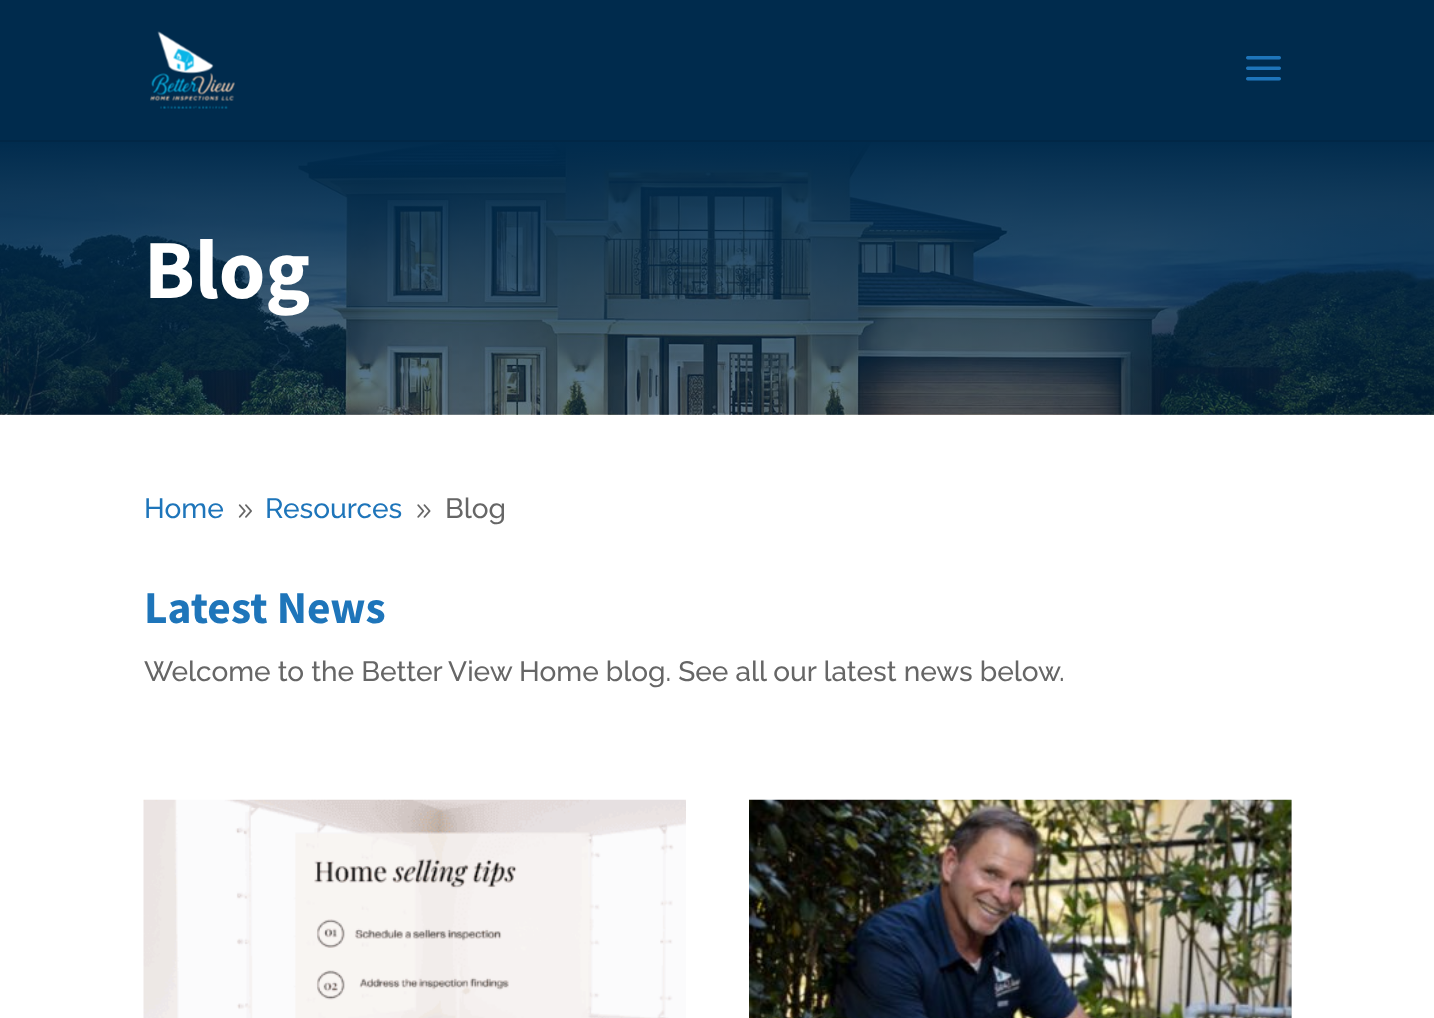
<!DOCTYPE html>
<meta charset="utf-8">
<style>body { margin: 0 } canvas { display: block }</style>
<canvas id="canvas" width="1434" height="1018"></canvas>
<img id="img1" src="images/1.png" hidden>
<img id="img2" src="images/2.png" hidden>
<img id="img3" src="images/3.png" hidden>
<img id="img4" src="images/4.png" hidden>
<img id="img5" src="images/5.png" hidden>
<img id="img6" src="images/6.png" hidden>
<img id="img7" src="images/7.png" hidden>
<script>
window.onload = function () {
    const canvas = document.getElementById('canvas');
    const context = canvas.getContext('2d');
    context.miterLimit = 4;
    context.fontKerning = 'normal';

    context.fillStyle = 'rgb(255, 255, 255)';
    context.fillRect(0, 0, 1434, 1018);
    context.fillStyle = 'rgb(1, 39, 70)';
    context.fillRect(0, 140, 1434, 2);
    context.fillStyle = 'rgb(0, 43, 77)';
    context.fillRect(0, 0, 1434, 140);
    context.drawImage(document.getElementById('img1'), 150, 31, 85, 78);
    context.drawImage(document.getElementById('img2'), 1246, 56, 35, 25);
    context.drawImage(document.getElementById('img3'), 0, 142, 1434, 273);
    context.drawImage(document.getElementById('img4'), 238, 504, 14, 14);
    context.drawImage(document.getElementById('img5'), 417, 504, 14, 14);
    context.drawImage(document.getElementById('img6'), 143, 799, 543, 219);
    context.strokeStyle = 'rgb(216, 216, 216)';
    context.lineWidth = 2;
    context.strokeRect(750, 801, 541, 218);
    context.drawImage(document.getElementById('img7'), 749, 799, 543, 219);
    context.font = 'bold 84px Source Sans Pro';
    context.fillStyle = 'rgb(255, 255, 255)';
    context.fillText('Blog', 144, 298);
    context.font = '500 28px Raleway';
    context.fillStyle = 'rgb(30, 117, 186)';
    context.fillText('Home', 144, 518);
    context.fillText('Resources', 265, 518);
    context.fillStyle = 'rgb(102, 102, 102)';
    context.fillText('Blog', 445, 518);
    context.font = 'bold 45.5px Source Sans Pro';
    context.fillStyle = 'rgb(30, 117, 186)';
    context.fillText('Latest News', 144, 623);
    context.font = '500 28px Raleway';
    context.fillStyle = 'rgb(102, 102, 102)';
    context.fillText('Welcome to the Better View Home blog. See all our latest news below.', 144, 681);
};
</script>
